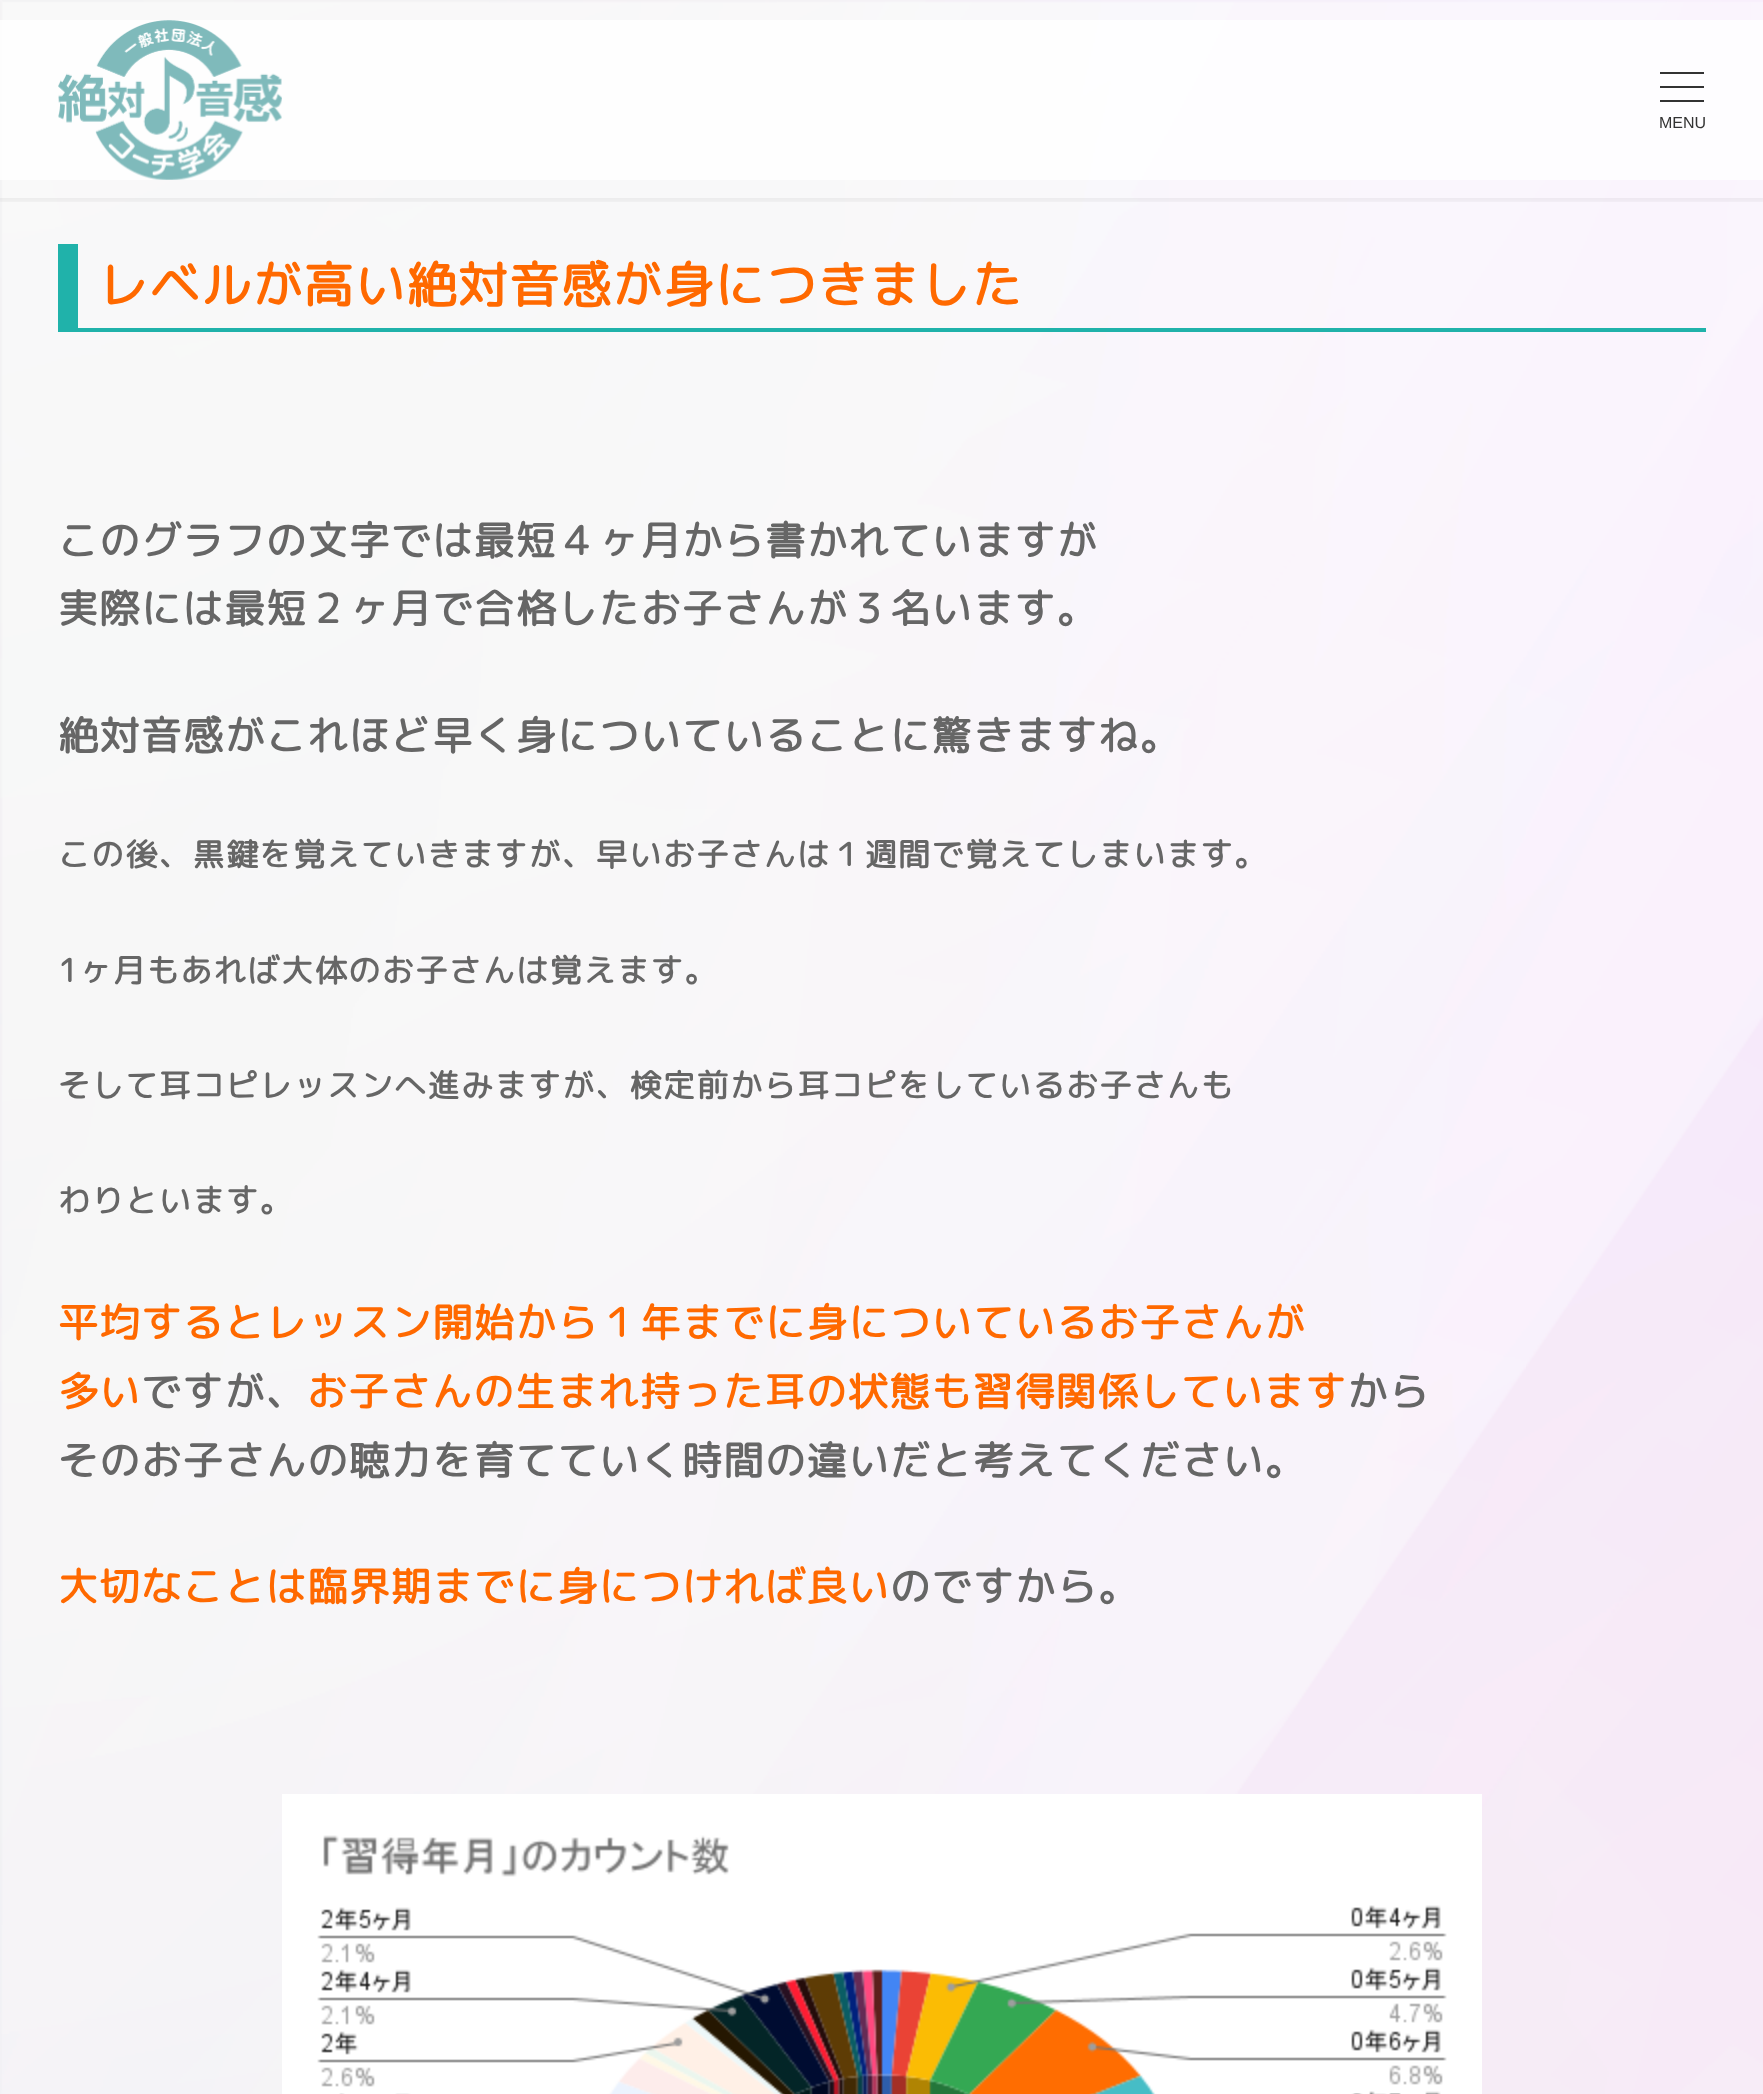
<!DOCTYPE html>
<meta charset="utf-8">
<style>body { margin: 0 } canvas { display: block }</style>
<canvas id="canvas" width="1763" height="2094"></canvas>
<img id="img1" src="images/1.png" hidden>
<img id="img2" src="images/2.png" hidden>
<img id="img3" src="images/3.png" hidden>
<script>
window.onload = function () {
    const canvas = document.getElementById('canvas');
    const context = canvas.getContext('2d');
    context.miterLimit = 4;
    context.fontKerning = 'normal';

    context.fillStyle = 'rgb(255, 255, 255)';
    context.fillRect(0, 0, 1763, 2094);
    context.drawImage(document.getElementById('img1'), 0, 0, 1763, 2094);
    context.save();
    context.beginPath();
    context.rect(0, 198, 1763, 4);
    context.clip();
    context.fillStyle = 'rgba(0, 0, 0, 0.05)';
    context.filter = 'blur(2px)';
    context.beginPath();
    context.rect(-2, 0, 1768, 202);
    context.fill();
    context.filter = 'none';
    context.restore();
    context.fillStyle = 'rgba(255, 255, 255, 0.8)';
    context.fillRect(0, 20, 1763, 160);
    context.drawImage(document.getElementById('img2'), 58, 20, 224, 160);
    context.fillStyle = 'rgb(51, 51, 51)';
    context.fillRect(1660, 72, 44, 2);
    context.fillRect(1660, 86, 44, 2);
    context.fillRect(1660, 100, 44, 2);
    context.fillStyle = 'rgb(32, 178, 170)';
    context.fillRect(78, 328, 1628, 4);
    context.fillRect(58, 244, 20, 88);
    context.drawImage(document.getElementById('img3'), 282, 1794, 1200, 300);
    context.font = '16px Liberation Sans';
    context.fillStyle = 'rgb(51, 51, 51)';
    context.fillText('MENU', 1659, 128);
    context.letterSpacing = '1.6px';
    context.font = 'bold 49.8px "Rounded Mplus 1c"';
    context.fillStyle = 'rgb(255, 105, 0)';
    context.fillText('レベルが高い絶対音感が身につきました', 98, 303);
    context.font = 'bold 40px "Rounded Mplus 1c"';
    context.fillStyle = 'rgb(102, 102, 102)';
    context.fillText('このグラフの文字では最短４ヶ月から書かれていますが', 58, 555);
    context.fillText('実際には最短２ヶ月で合格したお子さんが３名います。', 58, 623);
    context.fillText('絶対音感がこれほど早く身についていることに驚きますね。', 58, 750);
    context.font = 'bold 32px "Rounded Mplus 1c"';
    context.fillText('この後、黒鍵を覚えていきますが、早いお子さんは１週間で覚えてしまいます。', 58, 866);
    context.fillText('1ヶ月もあれば大体のお子さんは覚えます。', 58, 982);
    context.fillText('そして耳コピレッスンへ進みますが、検定前から耳コピをしているお子さんも', 58, 1097);
    context.fillText('わりといます。', 58, 1212);
    context.font = 'bold 40px "Rounded Mplus 1c"';
    context.fillStyle = 'rgb(255, 105, 0)';
    context.fillText('平均するとレッスン開始から１年までに身についているお子さんが', 58, 1337);
    context.fillText('多い', 58, 1406);
    context.fillStyle = 'rgb(102, 102, 102)';
    context.fillText('ですが、', 141, 1406);
    context.fillStyle = 'rgb(255, 105, 0)';
    context.fillText('お子さんの生まれ持った耳の状態も習得関係しています', 307, 1406);
    context.fillStyle = 'rgb(102, 102, 102)';
    context.fillText('から', 1347, 1406);
    context.fillText('そのお子さんの聴力を育てていく時間の違いだと考えてください。', 58, 1475);
    context.fillStyle = 'rgb(255, 105, 0)';
    context.fillText('大切なことは臨界期までに身につければ良い', 58, 1601);
    context.fillStyle = 'rgb(102, 102, 102)';
    context.fillText('のですから。', 890, 1601);
};
</script>
